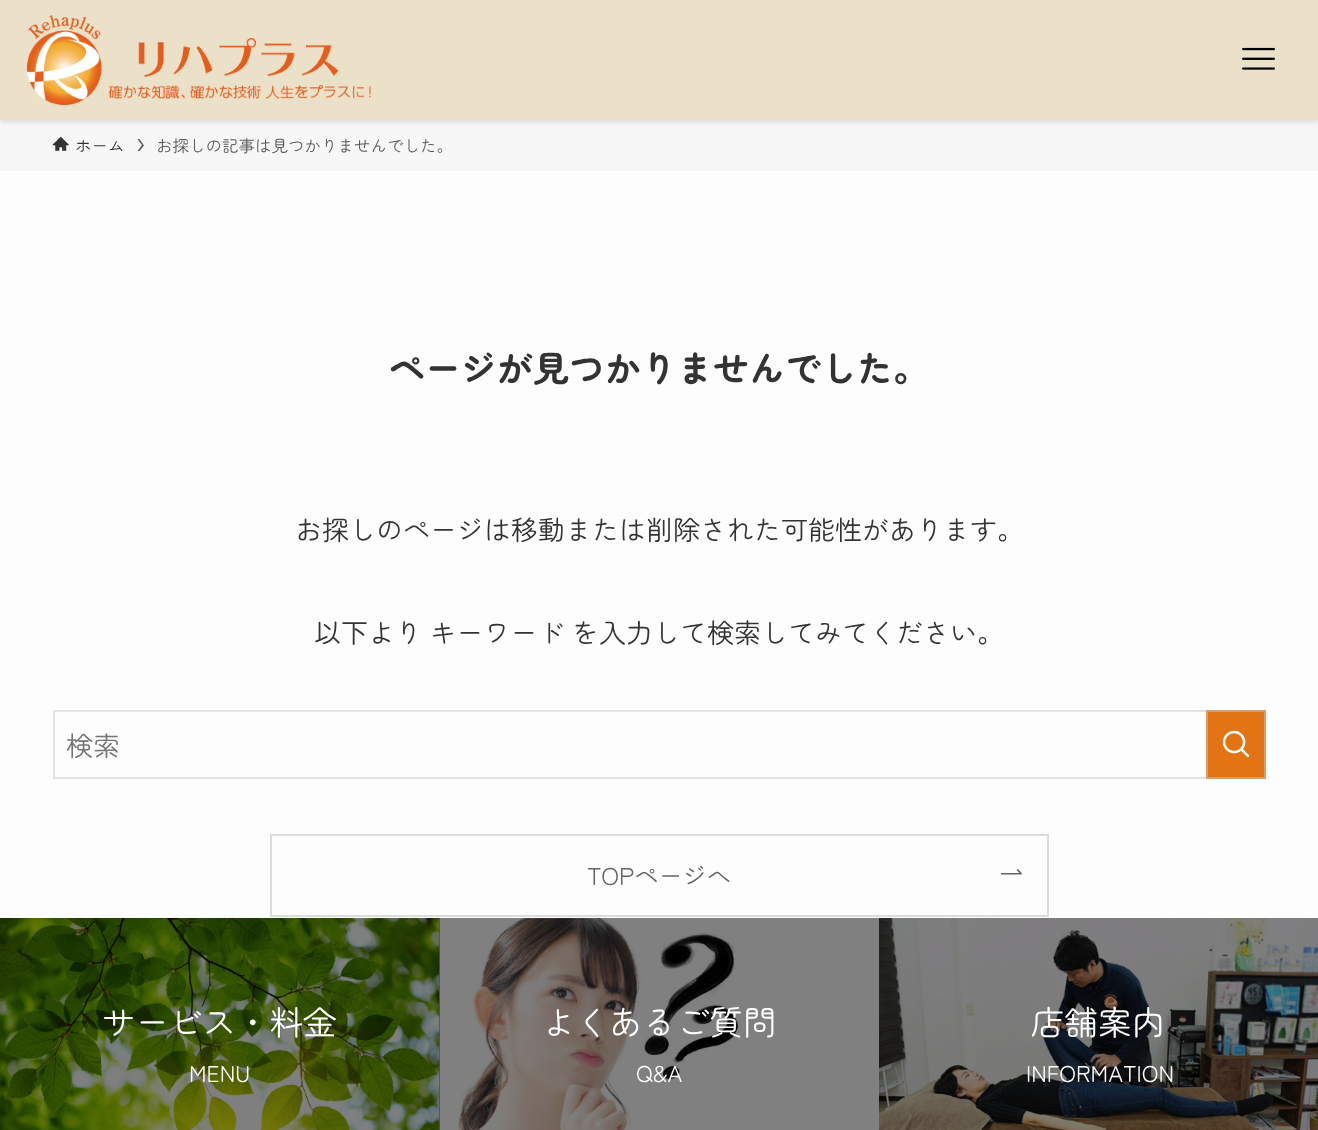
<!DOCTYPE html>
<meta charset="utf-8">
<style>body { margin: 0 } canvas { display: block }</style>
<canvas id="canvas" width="1318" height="1130"></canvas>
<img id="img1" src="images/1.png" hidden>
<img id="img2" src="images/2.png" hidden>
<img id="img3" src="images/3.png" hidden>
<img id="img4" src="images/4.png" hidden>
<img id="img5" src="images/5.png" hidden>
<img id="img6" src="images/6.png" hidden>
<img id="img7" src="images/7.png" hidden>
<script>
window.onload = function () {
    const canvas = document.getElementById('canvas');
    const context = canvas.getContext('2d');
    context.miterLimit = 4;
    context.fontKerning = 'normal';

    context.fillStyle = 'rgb(253, 253, 253)';
    context.fillRect(0, 0, 1318, 1130);
    context.fillStyle = 'rgb(247, 247, 247)';
    context.fillRect(0, 120, 1318, 51);
    context.fillStyle = 'rgba(0, 0, 0, 0.12)';
    context.filter = 'blur(3px)';
    context.beginPath();
    context.rect(0, 2, 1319, 120);
    context.fill();
    context.filter = 'none';
    context.fillStyle = 'rgb(235, 225, 201)';
    context.fillRect(0, 0, 1318, 120);
    context.drawImage(document.getElementById('img1'), 26, 15, 345, 90);
    context.drawImage(document.getElementById('img2'), 1242, 47, 33, 23);
    context.drawImage(document.getElementById('img3'), 52, 136, 17, 15);
    context.fillStyle = 'rgb(90, 90, 90)';
    context.beginPath();
    context.moveTo(139.5, 139);
    context.lineTo(137.5, 139);
    context.lineTo(142, 145);
    context.lineTo(137.5, 151);
    context.lineTo(139.5, 151);
    context.lineTo(144, 145.5);
    context.closePath();
    context.fill();
    context.strokeStyle = 'rgb(227, 227, 227)';
    context.lineWidth = 2;
    context.strokeRect(54, 711, 1211, 67);
    context.fillStyle = 'rgb(226, 116, 20)';
    context.beginPath();
    context.rect(1207, 711, 58, 67);
    context.fill();
    context.strokeStyle = 'rgb(213, 158, 110)';
    context.stroke();
    context.drawImage(document.getElementById('img4'), 1222, 730, 28, 28);
    context.strokeStyle = 'rgb(220, 220, 220)';
    context.strokeRect(271, 835, 777, 81);
    context.fillStyle = 'rgb(102, 102, 102)';
    context.beginPath();
    context.moveTo(1021.5, 874.5);
    context.lineTo(1001, 874.5);
    context.lineTo(1001, 873);
    context.lineTo(1019.5, 873);
    context.lineTo(1016.5, 870);
    context.lineTo(1018, 869);
    context.lineTo(1022, 873.5);
    context.closePath();
    context.fill();
    context.fillStyle = 'rgb(124, 124, 124)';
    context.fillRect(439, 918, 1, 212);
    context.drawImage(document.getElementById('img5'), 0, 918, 440, 212);
    context.drawImage(document.getElementById('img6'), 439, 918, 440, 212);
    context.fillStyle = 'rgba(0, 0, 0, 0.5)';
    context.fillRect(0, 918, 440, 212);
    context.drawImage(document.getElementById('img7'), 879, 918, 439, 212);
    context.font = '16.5px Zen Maru Gothic';
    context.fillStyle = 'rgb(51, 51, 51)';
    context.fillText('ホーム', 75, 152);
    context.fillStyle = 'rgb(90, 90, 90)';
    context.fillText('お探しの記事は見つかりませんでした。', 156, 152);
    context.font = 'bold 36px Zen Maru Gothic';
    context.fillStyle = 'rgb(51, 51, 51)';
    context.fillText('ページが見つかりませんでした。', 389, 382);
    context.font = '27px Zen Maru Gothic';
    context.fillText('お探しのページは移動または削除された可能性があります。', 295, 540);
    context.fillText('以下より キーワード を入力して検索してみてください。', 314, 643);
    context.fillStyle = 'rgb(117, 117, 117)';
    context.fillText('検索', 66, 756);
    context.font = '24.25px Zen Maru Gothic';
    context.fillStyle = 'rgb(102, 102, 102)';
    context.fillText('TOPページへ', 587, 885);
    context.font = '33.5px Zen Maru Gothic';
    context.fillStyle = 'rgb(255, 255, 255)';
    context.fillText('サービス・料金', 102, 1035);
    context.font = '22.75px Zen Maru Gothic';
    context.fillText('MENU', 189, 1082);
    context.font = '33.5px Zen Maru Gothic';
    context.fillText('よくあるご質問', 542, 1035);
    context.font = '22.75px Zen Maru Gothic';
    context.fillText('Q&A', 636, 1082);
    context.font = '33.5px Zen Maru Gothic';
    context.fillText('店舗案内', 1031, 1035);
    context.font = '22.75px Zen Maru Gothic';
    context.fillText('INFORMATION', 1026, 1082);
};
</script>
